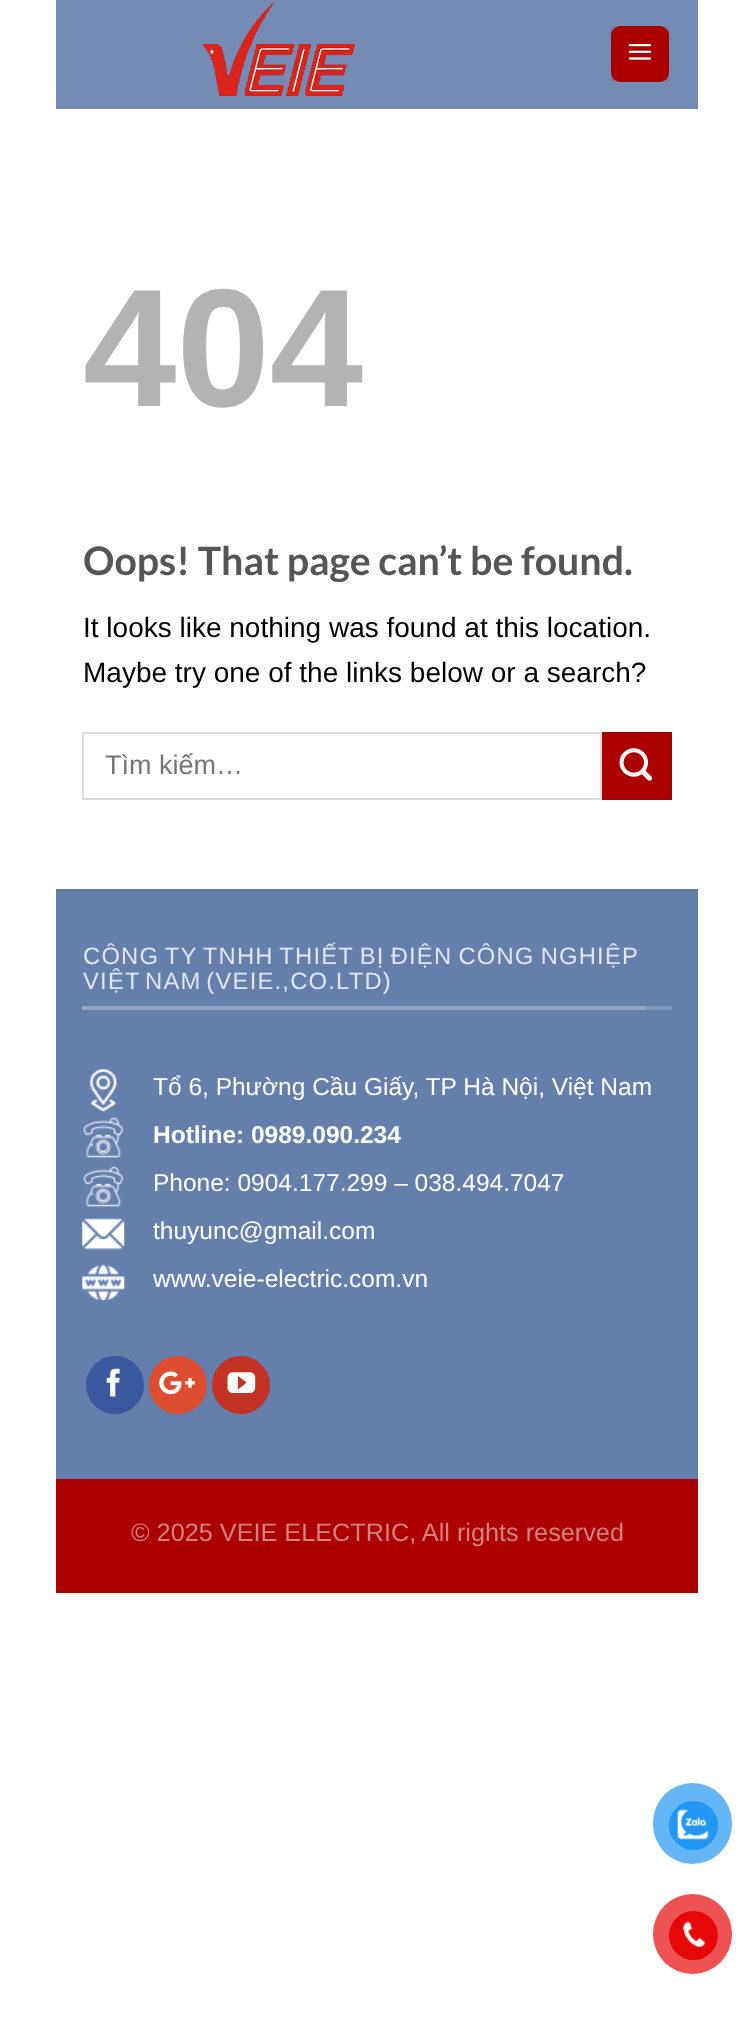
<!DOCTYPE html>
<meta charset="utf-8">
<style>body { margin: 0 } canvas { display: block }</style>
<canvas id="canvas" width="754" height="2018"></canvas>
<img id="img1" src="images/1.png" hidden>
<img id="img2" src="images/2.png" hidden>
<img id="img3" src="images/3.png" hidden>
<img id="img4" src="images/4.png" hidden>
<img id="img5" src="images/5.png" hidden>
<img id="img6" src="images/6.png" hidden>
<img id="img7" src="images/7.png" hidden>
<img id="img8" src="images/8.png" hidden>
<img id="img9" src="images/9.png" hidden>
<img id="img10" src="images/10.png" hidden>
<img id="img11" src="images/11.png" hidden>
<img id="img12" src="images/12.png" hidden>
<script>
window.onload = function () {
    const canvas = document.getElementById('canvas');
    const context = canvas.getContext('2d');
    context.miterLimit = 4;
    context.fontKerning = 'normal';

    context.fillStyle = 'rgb(255, 255, 255)';
    context.fillRect(0, 0, 754, 2018);
    context.fillStyle = 'rgb(116, 139, 181)';
    context.fillRect(56, 0, 642, 109);
    context.drawImage(document.getElementById('img1'), 202, 2, 154, 94);
    context.fillStyle = 'rgb(172, 0, 0)';
    context.beginPath();
    context.roundRect(611, 26, 58, 56, 9);
    context.fill();
    context.strokeStyle = 'rgba(0, 0, 0, 0.05)';
    context.lineWidth = 2;
    context.strokeRect(612, 27, 56, 54);
    context.drawImage(document.getElementById('img2'), 628, 44, 24, 16);
    context.strokeStyle = 'rgb(221, 221, 221)';
    context.strokeRect(83, 733, 518, 66);
    context.beginPath();
    context.rect(603, 733, 68, 66);
    context.fill();
    context.strokeStyle = 'rgb(163, 0, 0)';
    context.stroke();
    context.drawImage(document.getElementById('img3'), 619, 748, 34, 33);
    context.fillStyle = 'rgb(101, 127, 173)';
    context.fillRect(56, 891, 642, 588);
    context.fillStyle = 'rgb(96, 121, 164)';
    context.fillRect(56, 889, 642, 2);
    context.fillStyle = 'rgb(126, 147, 186)';
    context.fillRect(646, 1006, 26, 4);
    context.fillStyle = 'rgb(146, 163, 197)';
    context.fillRect(82, 1006, 564, 4);
    context.drawImage(document.getElementById('img4'), 90, 1069, 27, 43);
    context.drawImage(document.getElementById('img5'), 83, 1117, 41, 41);
    context.drawImage(document.getElementById('img5'), 83, 1166, 41, 41);
    context.drawImage(document.getElementById('img6'), 82, 1218, 43, 32);
    context.drawImage(document.getElementById('img7'), 82, 1264, 43, 38);
    context.fillStyle = 'rgb(58, 88, 157)';
    context.beginPath();
    context.arc(115, 1385, 28, 0, 2 * Math.PI);
    context.fill();
    context.strokeStyle = 'rgb(58, 88, 157)';
    context.stroke();
    context.drawImage(document.getElementById('img8'), 106, 1368, 14, 29);
    context.fillStyle = 'rgb(221, 78, 49)';
    context.beginPath();
    context.arc(178, 1385, 28, 0, 2 * Math.PI);
    context.fill();
    context.strokeStyle = 'rgb(221, 78, 49)';
    context.stroke();
    context.drawImage(document.getElementById('img9'), 159, 1371, 36, 24);
    context.fillStyle = 'rgb(195, 50, 35)';
    context.beginPath();
    context.arc(241, 1385, 28, 0, 2 * Math.PI);
    context.fill();
    context.strokeStyle = 'rgb(195, 50, 35)';
    context.stroke();
    context.drawImage(document.getElementById('img10'), 227, 1372, 29, 21);
    context.fillStyle = 'rgb(172, 0, 0)';
    context.fillRect(56, 1479, 642, 114);
    context.fillStyle = 'rgb(100, 182, 247)';
    context.beginPath();
    context.roundRect(653, 1783, 79, 81, 39.5);
    context.fill();
    context.fillStyle = 'rgb(33, 150, 243)';
    context.beginPath();
    context.arc(693.5, 1825.5, 24.5, 0, 2 * Math.PI);
    context.fill();
    context.drawImage(document.getElementById('img11'), 676, 1809, 33, 31);
    context.fillStyle = 'rgb(238, 82, 82)';
    context.beginPath();
    context.roundRect(653, 1894, 79, 80, 39.5);
    context.fill();
    context.fillStyle = 'rgb(230, 8, 8)';
    context.beginPath();
    context.arc(693.5, 1935.5, 24.5, 0, 2 * Math.PI);
    context.fill();
    context.drawImage(document.getElementById('img12'), 682, 1921, 24, 27);
    context.font = 'bold 168px Liberation Sans';
    context.fillStyle = 'rgb(179, 179, 179)';
    context.fillText('404', 83, 406);
    context.font = 'bold 39.25px Lato';
    context.fillStyle = 'rgb(85, 85, 85)';
    context.fillText('Oops! That page can’t be found.', 83, 575);
    context.font = '28px Liberation Sans';
    context.fillStyle = 'rgb(0, 0, 0)';
    context.fillText('It looks like nothing was found at this location.', 83, 637);
    context.fillText('Maybe try one of the links below or a search?', 83, 682);
    context.font = '27px Liberation Sans';
    context.fillStyle = 'rgb(117, 117, 117)';
    context.fillText('Tìm kiếm…', 105, 774);
    context.letterSpacing = '1.2px';
    context.wordSpacing = '-1.75px';
    context.font = '23.8px Liberation Sans';
    context.fillStyle = 'rgb(224, 229, 239)';
    context.fillText('CÔNG TY TNHH THIẾT BỊ ĐIỆN CÔNG NGHIỆP', 83, 964);
    context.wordSpacing = '-3px';
    context.fillText('VIỆT NAM (VEIE.,CO.LTD)', 83, 989);
    context.letterSpacing = '0px';
    context.wordSpacing = '0px';
    context.font = '24.5px Liberation Sans';
    context.fillStyle = 'rgb(255, 255, 255)';
    context.fillText('Tổ 6, Phường Cầu Giấy, TP Hà Nội, Việt Nam', 153, 1095);
    context.font = 'bold 24.5px Liberation Sans';
    context.fillText('Hotline: 0989.090.234', 153, 1143);
    context.font = '24.5px Liberation Sans';
    context.fillText('Phone: 0904.177.299 – 038.494.7047', 153, 1191);
    context.fillText('thuyunc@gmail.com', 153, 1239);
    context.fillText('www.veie-electric.com.vn', 153, 1287);
    context.font = '25.25px Liberation Sans';
    context.fillStyle = 'rgb(214, 128, 128)';
    context.fillText('© 2025 VEIE ELECTRIC, All rights reserved', 131, 1541);
};
</script>
